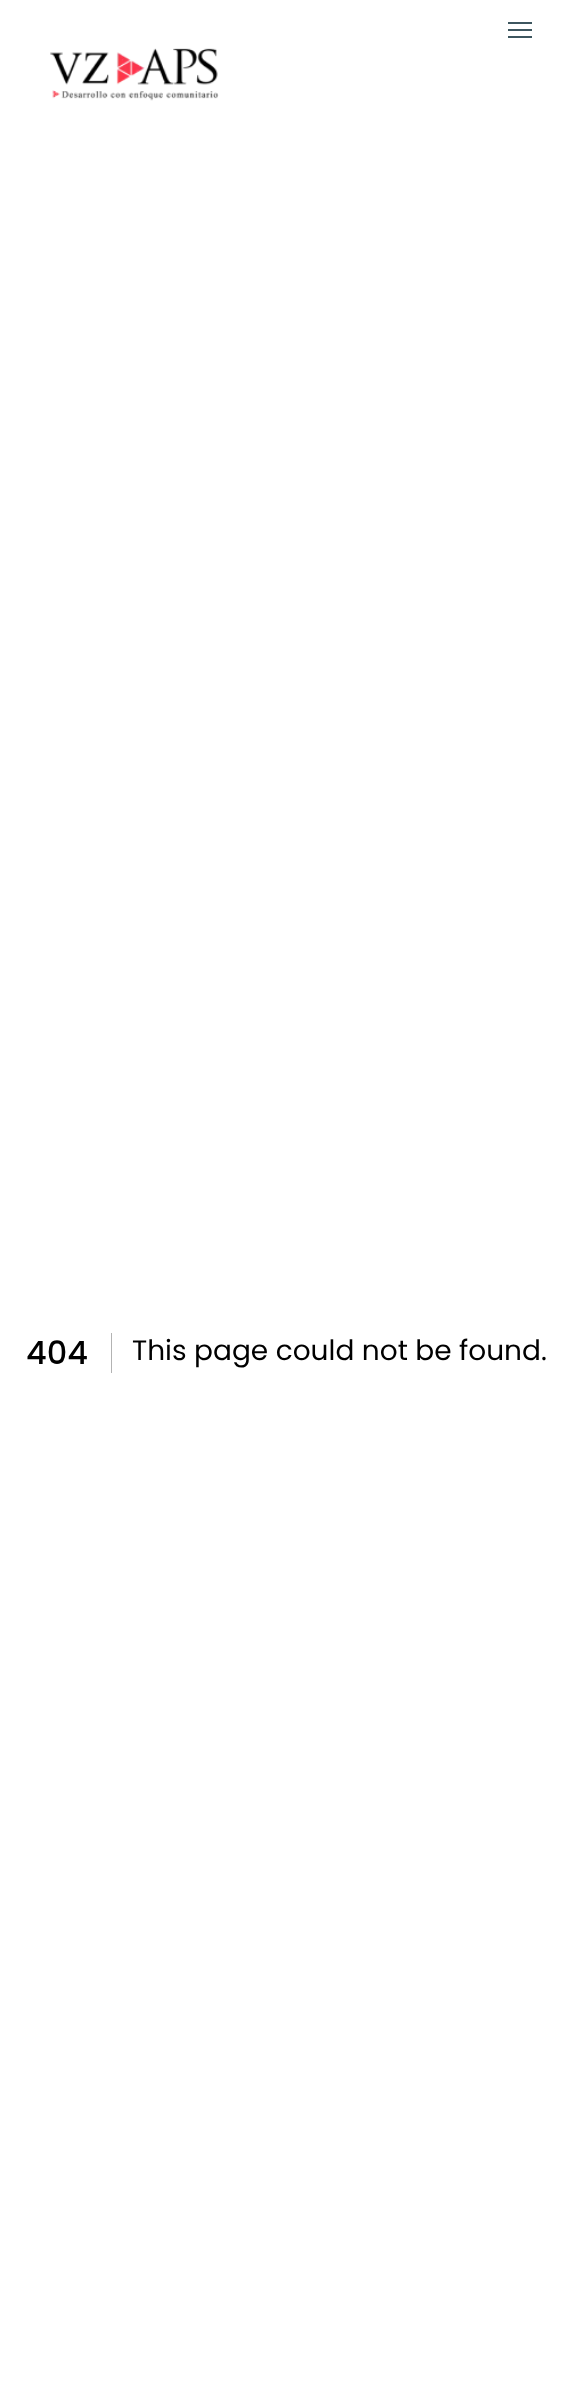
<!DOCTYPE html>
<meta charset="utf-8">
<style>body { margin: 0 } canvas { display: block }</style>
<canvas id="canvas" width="572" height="2396"></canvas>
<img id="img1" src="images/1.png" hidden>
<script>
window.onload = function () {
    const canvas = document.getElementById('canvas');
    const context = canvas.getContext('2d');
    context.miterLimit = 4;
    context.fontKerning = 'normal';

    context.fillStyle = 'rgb(255, 255, 255)';
    context.fillRect(0, 0, 572, 2396);
    context.fillStyle = 'rgb(61, 86, 95)';
    context.fillRect(508, 22, 24, 2);
    context.fillRect(508, 29, 24, 2);
    context.fillRect(508, 36, 24, 2);
    context.drawImage(document.getElementById('img1'), 50, 48, 169, 53);
    context.fillStyle = 'rgb(179, 179, 179)';
    context.fillRect(111, 1333, 1, 40);
    context.font = '500 32px Poppins';
    context.fillStyle = 'rgb(0, 0, 0)';
    context.fillText('404', 26, 1364);
    context.font = '28px Poppins';
    context.fillText('This page could not be found.', 132, 1360);
};
</script>
